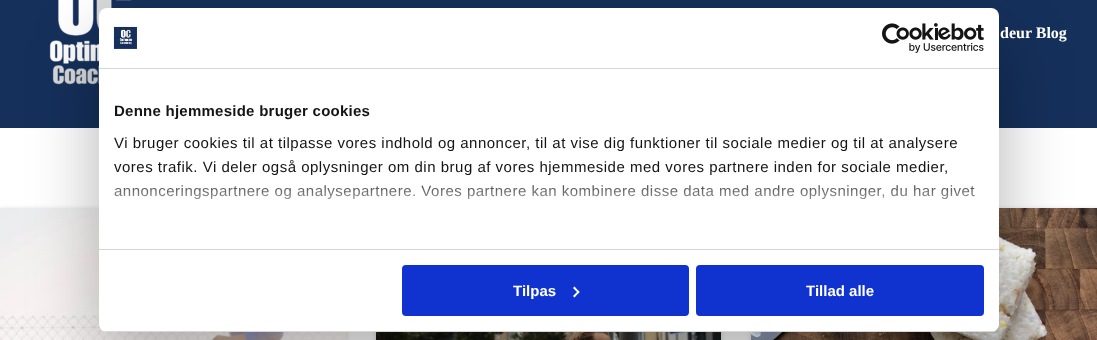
<!DOCTYPE html>
<meta charset="utf-8">
<style>body { margin: 0 } canvas { display: block }</style>
<canvas id="canvas" width="1097" height="340"></canvas>
<img id="img1" src="images/1.png" hidden>
<img id="img2" src="images/4.png" hidden>
<img id="img3" src="images/5.png" hidden>
<img id="img4" src="images/6.png" hidden>
<img id="img5" src="images/2.png" hidden>
<img id="img6" src="images/3.png" hidden>
<script>
window.onload = function () {
    const canvas = document.getElementById('canvas');
    const context = canvas.getContext('2d');
    context.miterLimit = 4;
    context.fontKerning = 'normal';
    let gradient;

    context.fillStyle = 'rgb(255, 255, 255)';
    context.fillRect(0, 0, 1097, 340);
    context.fillStyle = 'rgb(21, 48, 91)';
    context.fillRect(0, 0, 1097, 128);
    context.drawImage(document.getElementById('img1'), 49, 0, 82, 85);
    context.fillStyle = 'rgba(0, 0, 0, 0.15)';
    context.filter = 'blur(2.5px)';
    context.beginPath();
    context.rect(0, 209, 346, 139);
    context.fill();
    context.filter = 'none';
    context.drawImage(document.getElementById('img2'), 0, 208, 346, 132);
    context.filter = 'blur(2.5px)';
    context.beginPath();
    context.rect(376, 209, 345, 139);
    context.fill();
    context.filter = 'none';
    context.drawImage(document.getElementById('img3'), 376, 332, 345, 8);
    context.filter = 'blur(2.5px)';
    context.beginPath();
    context.rect(751, 209, 346, 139);
    context.fill();
    context.filter = 'none';
    context.drawImage(document.getElementById('img4'), 751, 208, 346, 132);
    context.fillStyle = 'rgba(0, 0, 0, 0.3)';
    context.filter = 'blur(34px)';
    context.beginPath();
    context.roundRect(99, 40, 900, 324, 8);
    context.fill();
    context.filter = 'none';
    context.fillStyle = 'rgb(255, 255, 255)';
    context.beginPath();
    context.roundRect(99, 8, 900, 324, 8);
    context.fill();
    context.fillStyle = 'rgb(214, 214, 214)';
    context.fillRect(99, 68, 900, 1);
    context.drawImage(document.getElementById('img5'), 113, 26, 24, 23);
    context.drawImage(document.getElementById('img6'), 882, 23, 102, 30);
    context.fillRect(99, 249, 900, 1);
    context.save();
    context.beginPath();
    context.roundRect(99, 8, 900, 324, 8);
    context.clip();
    context.fillRect(99, 331, 900, 1);
    context.restore();
    context.fillStyle = 'rgb(16, 50, 207)';
    context.beginPath();
    context.roundRect(403, 266, 285, 49, 3);
    context.fill();
    context.strokeStyle = 'rgb(16, 50, 207)';
    context.lineWidth = 2;
    context.stroke();
    context.fillStyle = 'rgb(255, 255, 255)';
    context.beginPath();
    context.moveTo(574.5, 286.5);
    context.lineTo(579.5, 292);
    context.lineTo(578.5, 293.5);
    context.lineTo(573, 288);
    context.closePath();
    context.fill();
    context.beginPath();
    context.moveTo(578.5, 290.5);
    context.lineTo(579.5, 292);
    context.lineTo(574.5, 297.5);
    context.lineTo(573, 296);
    context.closePath();
    context.fill();
    context.fillStyle = 'rgb(16, 50, 207)';
    context.beginPath();
    context.roundRect(697, 266, 286, 49, 3);
    context.fill();
    context.stroke();
    context.font = 'bold 16px Liberation Serif';
    context.fillStyle = 'rgb(255, 255, 255)';
    context.fillText('deur Blog', 1000, 38);
    context.letterSpacing = '0.25px';
    context.font = 'bold 15px Liberation Sans';
    context.fillStyle = 'rgb(20, 20, 20)';
    context.fillText('Denne hjemmeside bruger cookies', 114, 116);
    context.letterSpacing = '0.5px';
    context.font = '15px Liberation Sans';
    context.fillText('Vi bruger cookies til at tilpasse vores indhold og annoncer, til at vise dig funktioner til sociale medier og til at analysere', 114, 148);
    context.fillText('vores trafik. Vi deler også oplysninger om din brug af vores hjemmeside med vores partnere inden for sociale medier,', 114, 172);
    context.fillText('annonceringspartnere og analysepartnere. Vores partnere kan kombinere disse data med andre oplysninger, du har givet', 114, 196);
    gradient = context.createLinearGradient(543, 249, 543, 174);
    gradient.addColorStop(0, 'rgb(255, 255, 255)');
    gradient.addColorStop(0.5, 'rgba(255, 255, 255, 0.8)');
    gradient.addColorStop(1, 'rgba(255, 255, 255, 0)');
    context.fillStyle = gradient;
    context.fillRect(114, 185, 860, 15);
    context.letterSpacing = '0px';
    context.font = 'bold 15px Liberation Sans';
    context.fillStyle = 'rgb(255, 255, 255)';
    context.fillText('Tilpas', 513, 296);
    context.fillText('Tillad alle', 806, 296);
};
</script>
